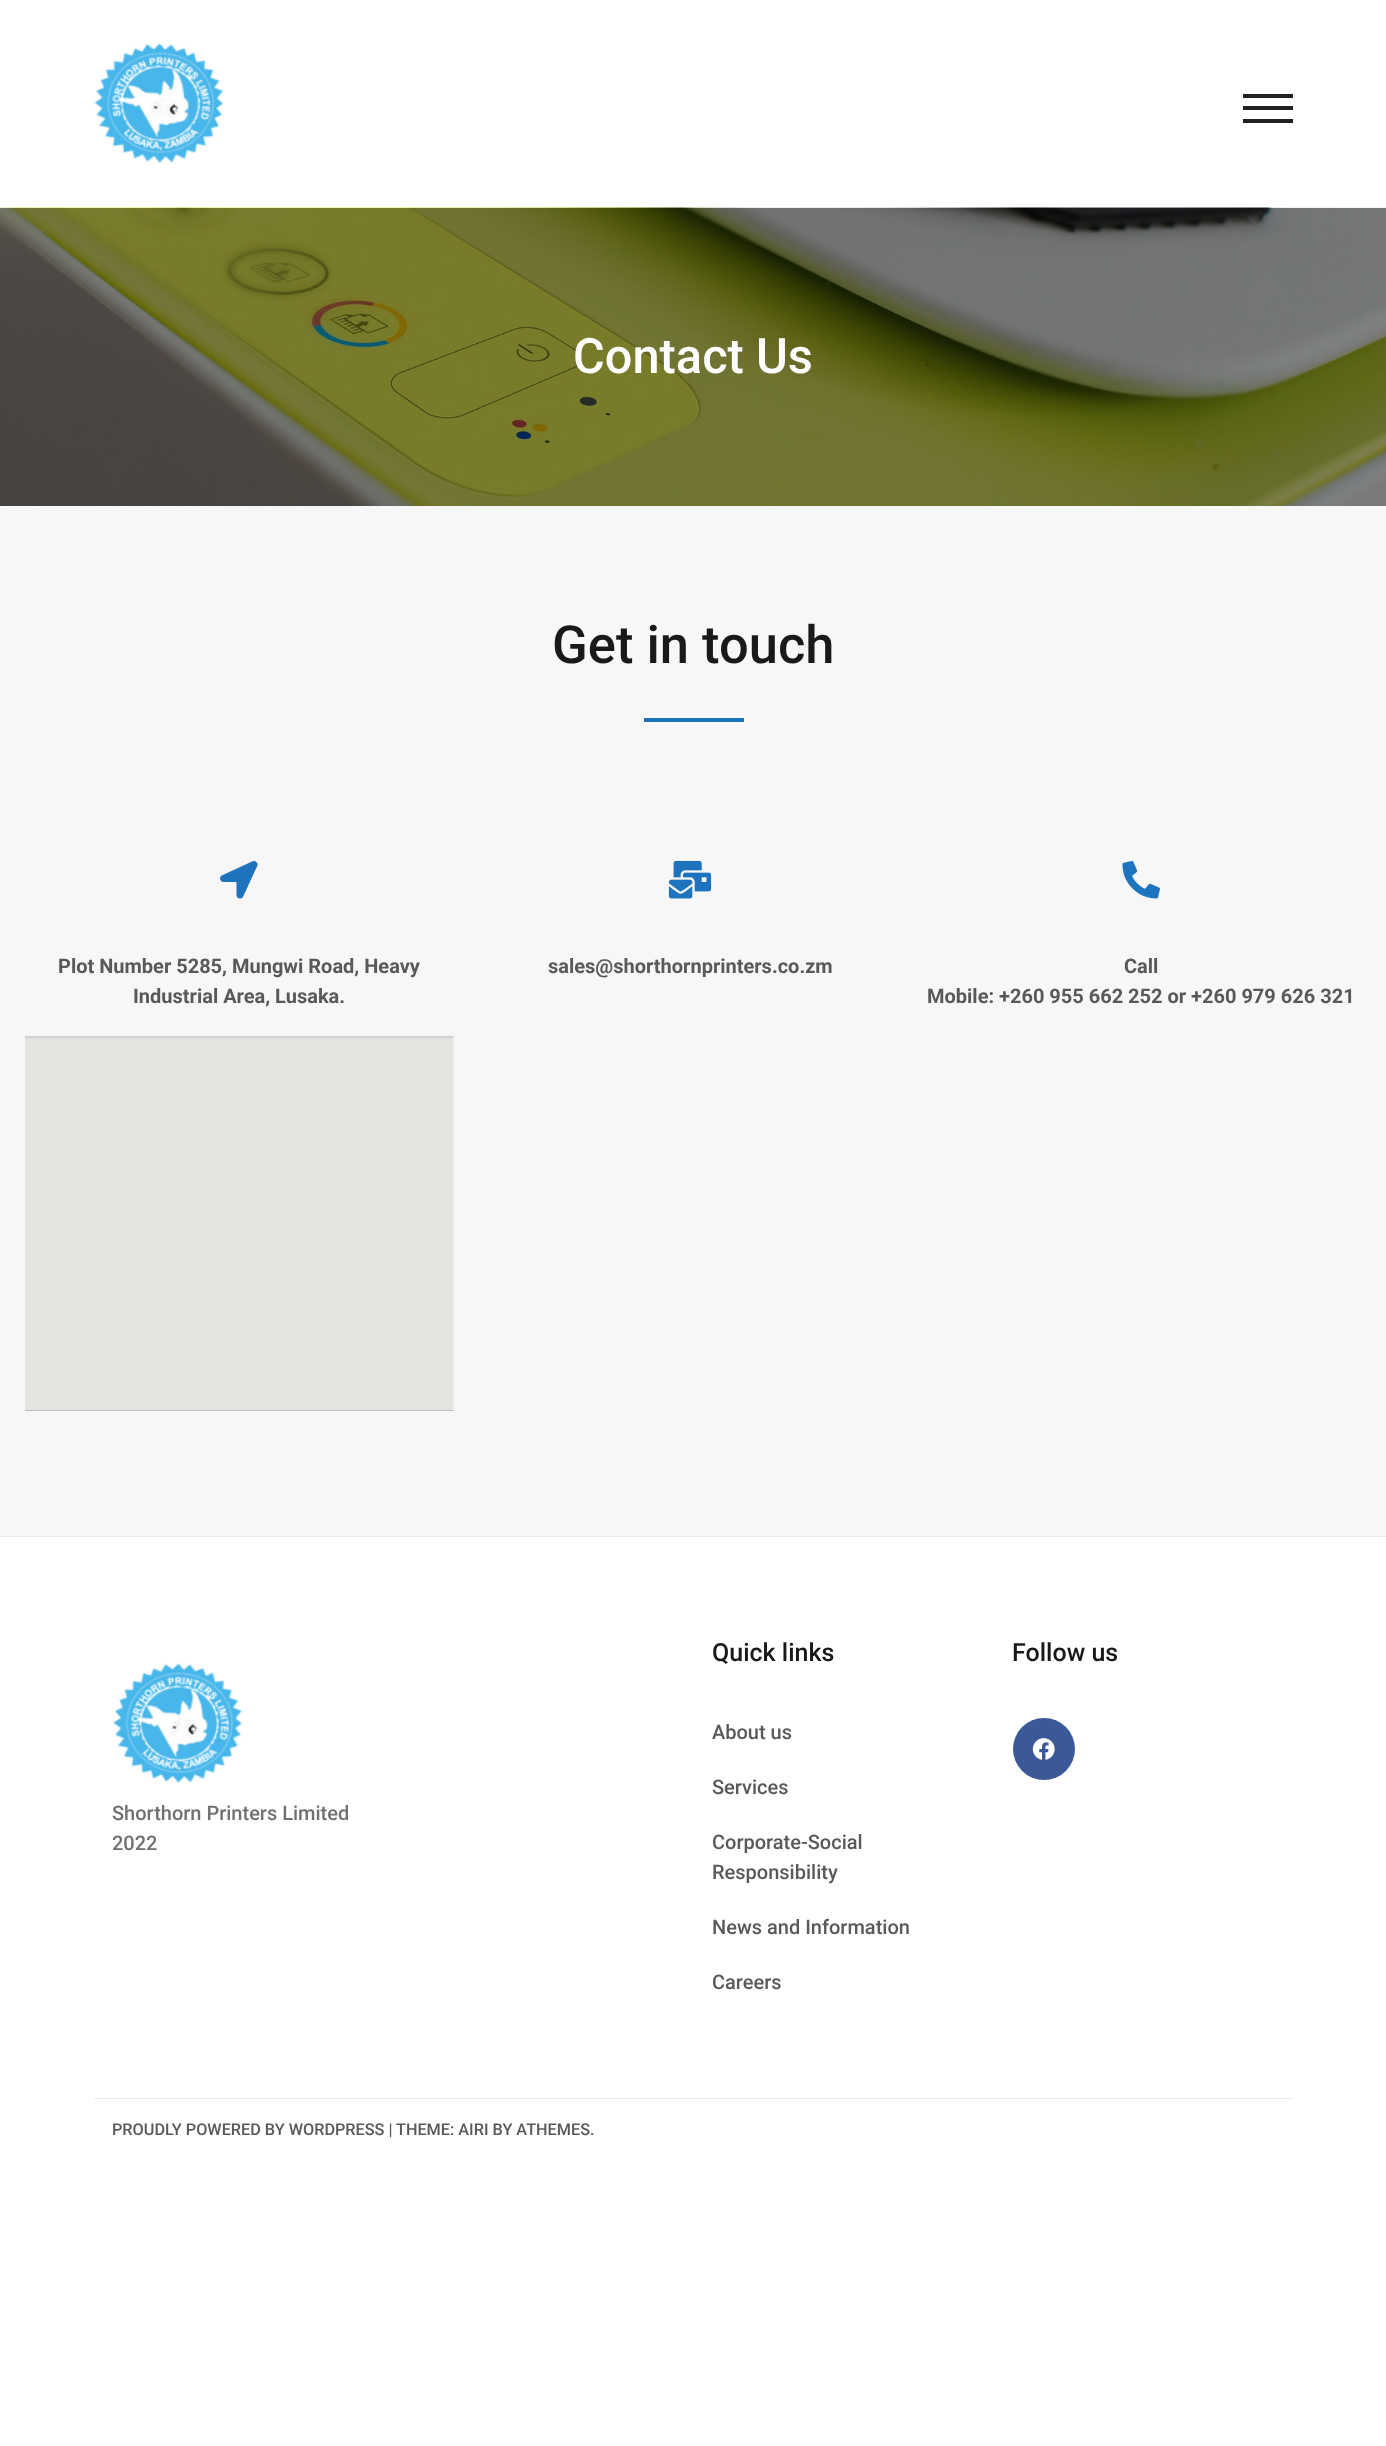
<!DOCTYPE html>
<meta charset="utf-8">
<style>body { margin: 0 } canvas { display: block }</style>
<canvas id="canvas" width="1386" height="2446"></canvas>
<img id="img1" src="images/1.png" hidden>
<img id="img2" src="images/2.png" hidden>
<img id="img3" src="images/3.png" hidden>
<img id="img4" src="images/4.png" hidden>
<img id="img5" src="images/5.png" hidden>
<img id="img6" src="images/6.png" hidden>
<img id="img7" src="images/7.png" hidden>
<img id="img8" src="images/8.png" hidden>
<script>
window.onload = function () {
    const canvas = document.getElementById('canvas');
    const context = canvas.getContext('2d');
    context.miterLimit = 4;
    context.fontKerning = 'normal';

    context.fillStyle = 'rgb(255, 255, 255)';
    context.fillRect(0, 0, 1386, 2446);
    context.drawImage(document.getElementById('img1'), 94, 43, 130, 120);
    context.fillStyle = 'rgb(33, 33, 33)';
    context.fillRect(1243, 106, 50, 4);
    context.fillRect(1243, 94, 50, 4);
    context.fillRect(1243, 119, 50, 4);
    context.drawImage(document.getElementById('img2'), 0, 207, 1386, 299);
    context.fillStyle = 'rgb(247, 247, 247)';
    context.fillRect(0, 506, 1386, 1030);
    context.fillStyle = 'rgb(30, 115, 190)';
    context.fillRect(644, 718, 100, 4);
    context.drawImage(document.getElementById('img3'), 220, 860, 38, 39);
    context.drawImage(document.getElementById('img4'), 25, 1036, 429, 375);
    context.drawImage(document.getElementById('img5'), 668, 860, 44, 39);
    context.drawImage(document.getElementById('img6'), 1122, 861, 38, 38);
    context.fillStyle = 'rgb(235, 235, 235)';
    context.fillRect(0, 1536, 1386, 1);
    context.fillStyle = 'rgb(59, 89, 152)';
    context.beginPath();
    context.arc(1044, 1749, 31, 0, 2 * Math.PI);
    context.fill();
    context.drawImage(document.getElementById('img7'), 1032, 1738, 23, 22);
    context.drawImage(document.getElementById('img8'), 112, 1663, 131, 121);
    context.fillStyle = 'rgb(235, 235, 235)';
    context.fillRect(94, 2098, 1200, 1);
    context.font = '500 48.75px Roboto';
    context.fillStyle = 'rgb(255, 255, 255)';
    context.fillText('Contact Us', 573, 373);
    context.font = '500 52.5px Roboto';
    context.fillStyle = 'rgb(25, 25, 25)';
    context.fillText('Get in touch', 552, 663);
    context.font = 'bold 20px Roboto';
    context.fillStyle = 'rgb(89, 89, 89)';
    context.fillText('Plot Number 5285, Mungwi Road, Heavy', 58, 973);
    context.fillText('Industrial Area, Lusaka.', 133, 1003);
    context.fillText('sales@shorthornprinters.co.zm', 548, 973);
    context.fillText('Call', 1124, 973);
    context.fillText('Mobile: +260 955 662 252 or +260 979 626 321', 927, 1003);
    context.font = '500 25px Roboto';
    context.fillStyle = 'rgb(25, 25, 25)';
    context.fillText('Quick links', 712, 1661);
    context.font = '500 20px Roboto';
    context.fillStyle = 'rgb(89, 89, 89)';
    context.fillText('About us', 712, 1739);
    context.fillText('Services', 712, 1794);
    context.fillText('Corporate-Social', 712, 1849);
    context.fillText('Responsibility', 712, 1879);
    context.fillText('News and Information', 712, 1934);
    context.fillText('Careers', 712, 1989);
    context.font = '500 25px Roboto';
    context.fillStyle = 'rgb(25, 25, 25)';
    context.fillText('Follow us', 1012, 1661);
    context.font = '500 20px Roboto';
    context.fillStyle = 'rgb(112, 112, 112)';
    context.fillText('Shorthorn Printers Limited', 112, 1820);
    context.fillText('2022', 112, 1850);
    context.font = '500 16.25px Roboto';
    context.fillStyle = 'rgb(89, 89, 89)';
    context.fillText('PROUDLY POWERED BY WORDPRESS |', 112, 2135);
    context.fillText('THEME: AIRI BY ATHEMES.', 396, 2135);
};
</script>
